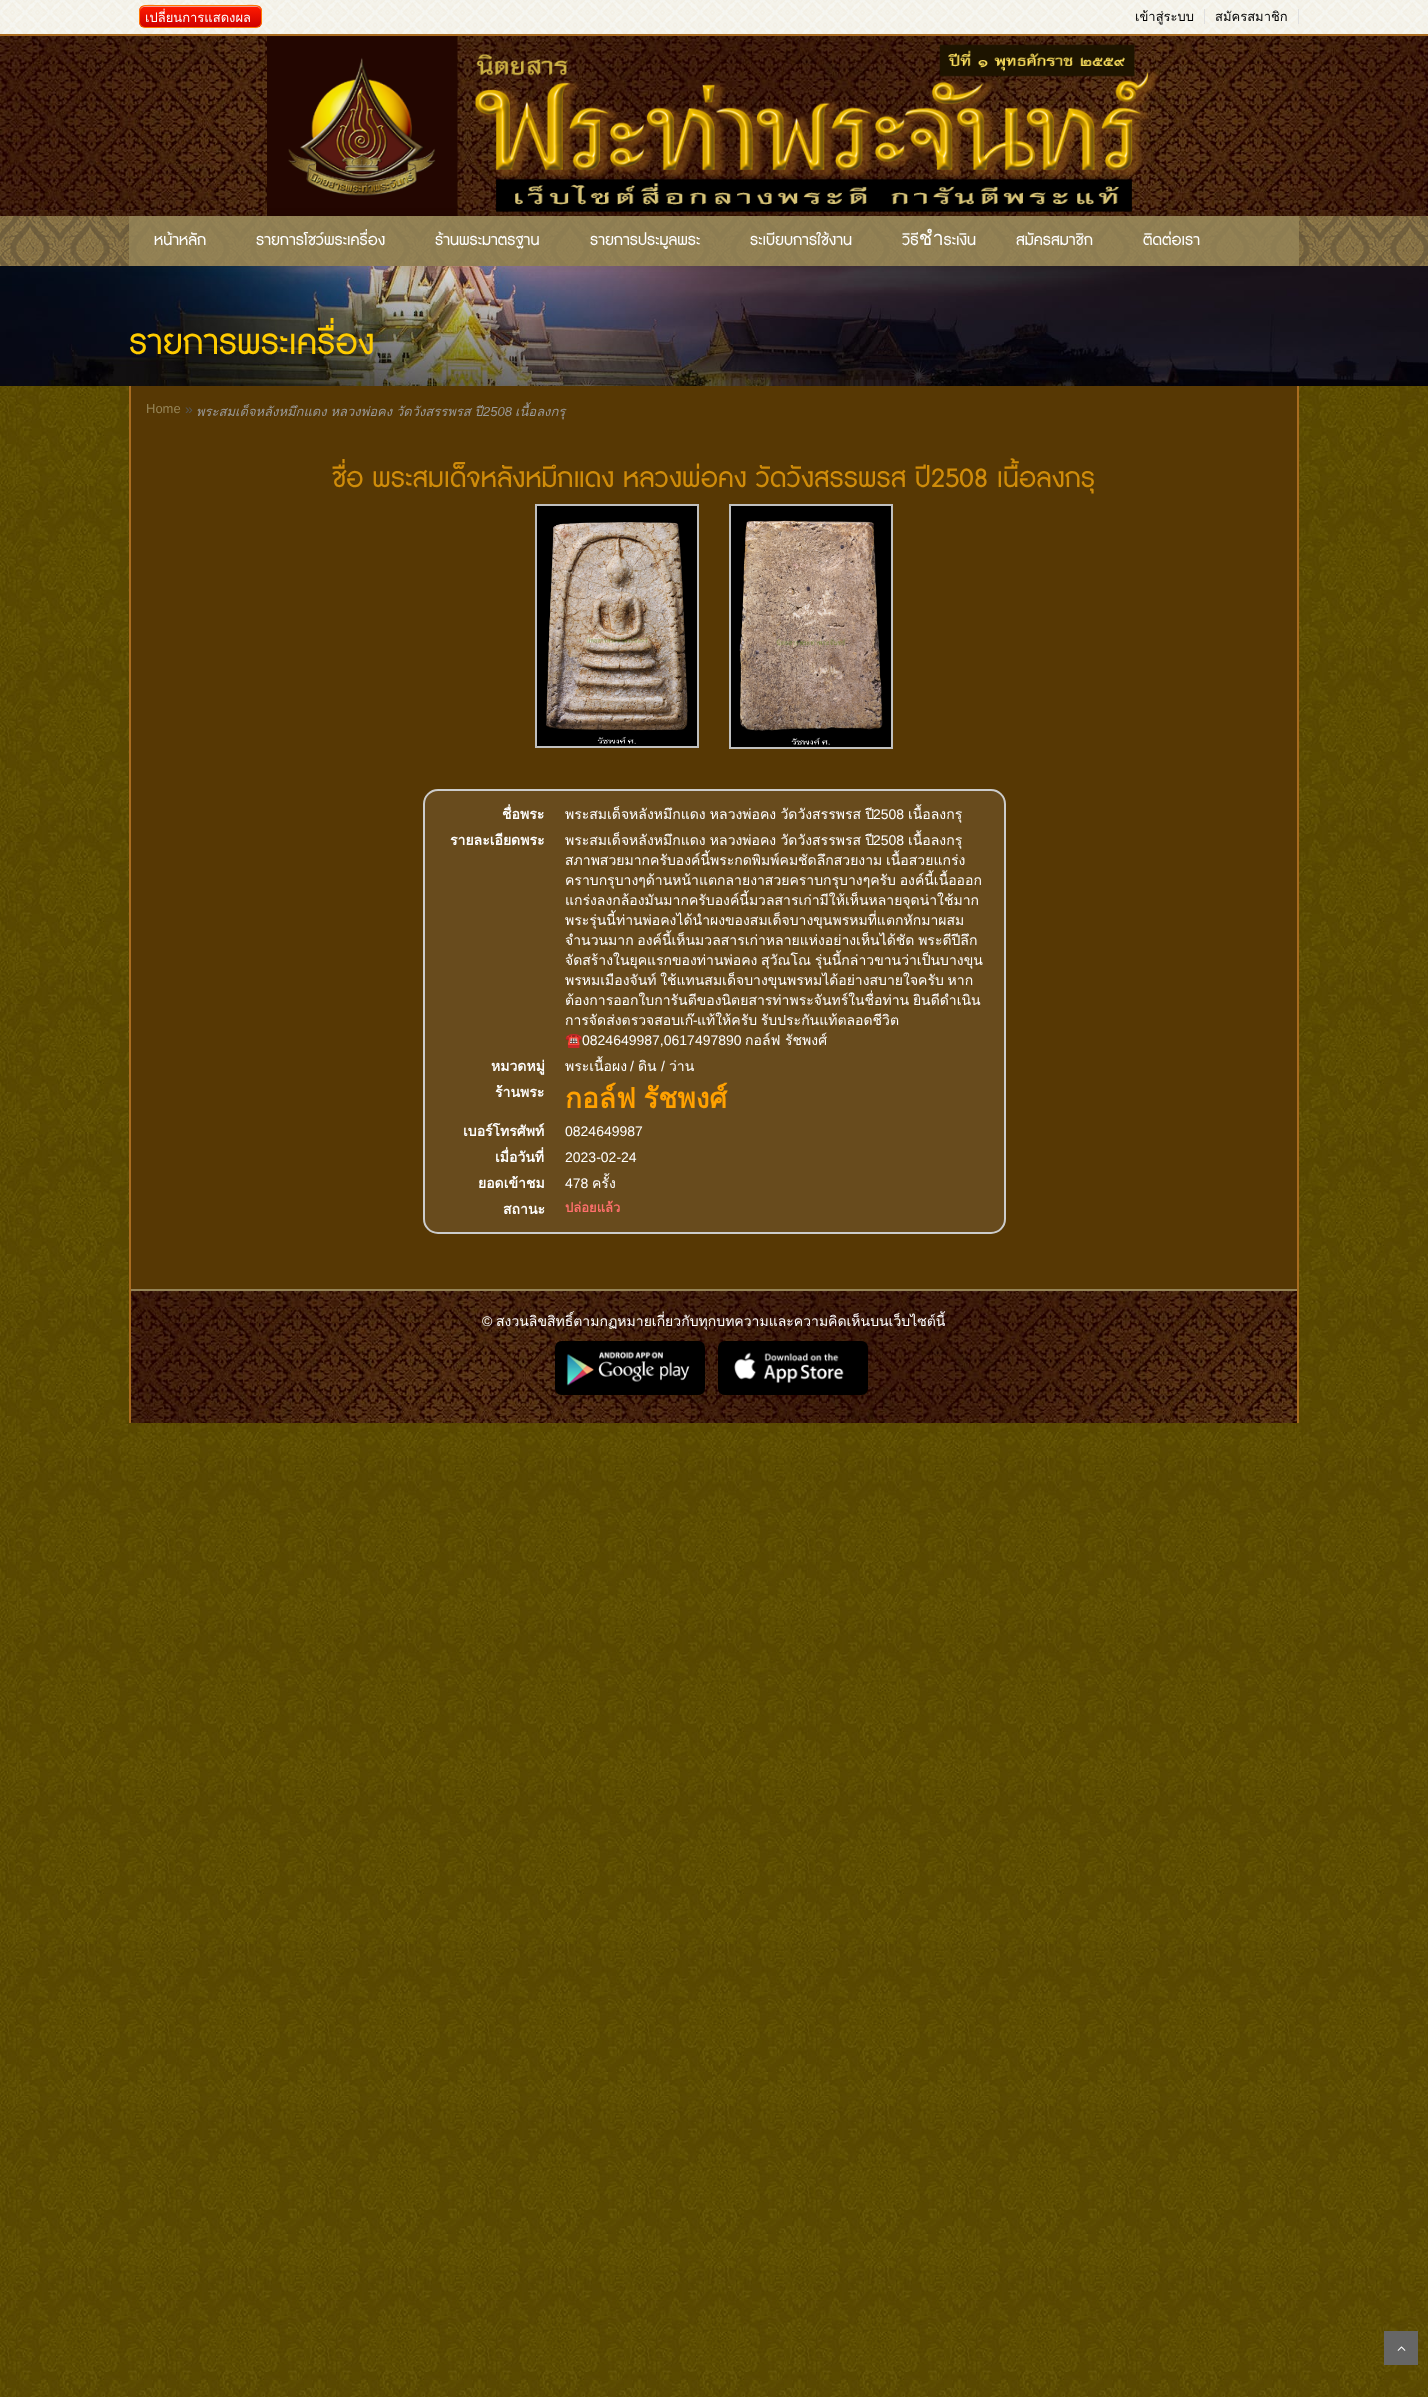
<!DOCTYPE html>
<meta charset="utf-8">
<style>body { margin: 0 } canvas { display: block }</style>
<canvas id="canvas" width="1428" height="2397"></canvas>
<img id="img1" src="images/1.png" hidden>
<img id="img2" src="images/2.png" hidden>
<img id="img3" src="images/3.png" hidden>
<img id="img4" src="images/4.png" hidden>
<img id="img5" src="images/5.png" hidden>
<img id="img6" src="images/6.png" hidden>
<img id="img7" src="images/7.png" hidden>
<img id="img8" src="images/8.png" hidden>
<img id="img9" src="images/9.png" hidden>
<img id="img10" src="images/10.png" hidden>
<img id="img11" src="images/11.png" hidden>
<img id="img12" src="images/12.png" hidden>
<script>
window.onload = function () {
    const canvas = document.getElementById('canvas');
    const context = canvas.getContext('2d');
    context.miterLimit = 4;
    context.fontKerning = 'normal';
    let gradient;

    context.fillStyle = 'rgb(255, 255, 255)';
    context.fillRect(0, 0, 1428, 2397);
    context.drawImage(document.getElementById('img1'), 0, 386, 1428, 2011);
    context.drawImage(document.getElementById('img2'), 0, 36, 1428, 230);
    context.fillStyle = 'rgb(246, 246, 246)';
    context.fillRect(0, 0, 1428, 34);
    context.drawImage(document.getElementById('img3'), 0, 0, 1428, 34);
    context.fillStyle = 'rgb(170, 108, 32)';
    context.fillRect(0, 34, 1428, 2);
    context.save();
    context.beginPath();
    context.roundRect(139, 5, 123, 23, 6);
    context.clip();
    gradient = context.createLinearGradient(140, 6, 140, 27);
    gradient.addColorStop(0.05, 'rgb(254, 26, 0)');
    gradient.addColorStop(1, 'rgb(206, 1, 0)');
    context.fillStyle = gradient;
    context.fillRect(139, 6, 123, 21);
    context.restore();
    context.fillStyle = 'rgb(242, 156, 147)';
    context.beginPath();
    context.moveTo(145, 7);
    context.lineTo(256, 7);
    context.bezierCurveTo(259, 7, 261, 9, 261, 12);
    context.bezierCurveTo(261, 1, 242, 6, 238, 6);
    context.lineTo(164, 6);
    context.bezierCurveTo(159, 6, 140, 1, 140, 12);
    context.bezierCurveTo(140, 9, 142, 7, 145, 7);
    context.closePath();
    context.fill();
    context.beginPath();
    context.roundRect(139.5, 5.5, 122, 22, 5.5);
    context.strokeStyle = 'rgb(255, 119, 1)';
    context.stroke();
    context.fillStyle = 'rgb(224, 224, 224)';
    context.fillRect(1204, 9, 1, 15);
    context.fillRect(1298, 9, 1, 15);
    context.drawImage(document.getElementById('img4'), 267, 36, 892, 180);
    context.fillStyle = 'rgba(149, 132, 87, 0.8)';
    context.fillRect(0, 216, 1428, 50);
    context.drawImage(document.getElementById('img5'), 0, 216, 1428, 50);
    context.drawImage(document.getElementById('img6'), 0, 266, 1428, 120);
    context.save();
    context.beginPath();
    context.moveTo(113, 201);
    context.lineTo(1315, 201);
    context.lineTo(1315, 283);
    context.lineTo(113, 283);
    context.closePath();
    context.moveTo(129, 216);
    context.lineTo(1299, 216);
    context.lineTo(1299, 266);
    context.lineTo(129, 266);
    context.closePath();
    context.clip('evenodd');
    context.fillStyle = 'rgba(0, 0, 0, 0.1)';
    context.filter = 'blur(5px)';
    context.beginPath();
    context.rect(129, 217, 1170, 50);
    context.fill();
    context.filter = 'none';
    context.restore();
    context.fillRect(129, 216, 1170, 50);
    context.fillStyle = 'rgb(87, 56, 4)';
    context.fillRect(131, 386, 1166, 903);
    context.fillStyle = 'rgb(170, 108, 32)';
    context.fillRect(1297, 386, 2, 1037);
    context.fillRect(129, 386, 2, 1037);
    context.strokeStyle = 'rgb(192, 192, 192)';
    context.lineWidth = 2;
    context.strokeRect(536, 505, 162, 242);
    context.drawImage(document.getElementById('img7'), 537, 506, 160, 240);
    context.strokeRect(730, 505, 162, 243);
    context.drawImage(document.getElementById('img8'), 731, 506, 160, 241);
    context.fillStyle = 'rgb(104, 75, 29)';
    context.beginPath();
    context.roundRect(424, 790, 581, 443, 14);
    context.fill();
    context.strokeStyle = 'rgb(204, 204, 204)';
    context.stroke();
    context.drawImage(document.getElementById('img9'), 131, 1291, 1166, 132);
    context.fillStyle = 'rgb(149, 132, 87)';
    context.fillRect(131, 1289, 1166, 2);
    context.drawImage(document.getElementById('img10'), 555, 1341, 150, 54);
    context.drawImage(document.getElementById('img11'), 718, 1341, 150, 54);
    context.fillStyle = 'rgb(102, 102, 102)';
    context.fillRect(1384, 2331, 34, 34);
    context.drawImage(document.getElementById('img12'), 1397, 2346, 9, 5);
    context.font = '13px Loma';
    context.fillStyle = 'rgb(255, 255, 255)';
    context.fillText('เปลี่ยนการแสดงผล', 145, 22);
    context.fillStyle = 'rgb(0, 0, 0)';
    context.fillText('เข้าสู่ระบบ', 1135, 21);
    context.fillText('สมัครสมาชิก', 1215, 21);
    context.font = '20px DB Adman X';
    context.fillStyle = 'rgb(255, 255, 255)';
    context.fillText('หน้าหลัก', 154, 245);
    context.fillText('รายการโชว์พระเครื่อง', 256, 245);
    context.fillText('ร้านพระมาตรฐาน', 435, 245);
    context.fillText('รายการประมูลพระ', 590, 245);
    context.fillText('ระเบียบการใช้งาน', 750, 245);
    context.fillText('วิธีชำระเงิน', 902, 245);
    context.fillText('สมัครสมาชิก', 1016, 245);
    context.fillText('ติดต่อเรา', 1143, 245);
    context.font = '45px DB Adman X';
    context.fillStyle = 'rgb(255, 204, 0)';
    context.fillText('รายการพระเครื่อง', 129, 354);
    context.font = '13px Liberation Sans';
    context.fillStyle = 'rgb(149, 132, 87)';
    context.fillText('Home', 146, 413);
    context.font = '14px Liberation Sans';
    context.fillStyle = 'rgb(85, 85, 85)';
    context.fillText('»', 185, 414);
    context.wordSpacing = '-0.5px';
    context.font = 'italic 13px Loma';
    context.fillStyle = 'rgb(153, 153, 153)';
    context.fillText('พระสมเด็จหลังหมึกแดง หลวงพ่อคง วัดวังสรรพรส ปี', 196, 416);
    context.wordSpacing = '0px';
    context.font = 'italic 13px Liberation Sans';
    context.fillText('2508', 483, 416);
    context.font = 'italic 13px Loma';
    context.fillText('เนื้อลงกรุ', 515, 416);
    context.font = '35px DB Adman X';
    context.fillStyle = 'rgb(207, 140, 10)';
    context.fillText('ชื่อ พระสมเด็จหลังหมึกแดง หลวงพ่อคง วัดวังสรรพรส ปี2508 เนื้อลงกรุ', 332, 487);
    context.font = 'bold 14px Loma';
    context.fillStyle = 'rgb(255, 255, 255)';
    context.fillText('ชื่อพระ', 502, 819);
    context.wordSpacing = '-0.5px';
    context.font = '14px Loma';
    context.fillText('พระสมเด็จหลังหมึกแดง หลวงพ่อคง วัดวังสรรพรส ปี', 565, 819);
    context.wordSpacing = '0px';
    context.font = '14px Liberation Sans';
    context.fillText('2508', 873, 819);
    context.font = '14px Loma';
    context.fillText('เนื้อลงกรุ', 908, 819);
    context.font = 'bold 14px Loma';
    context.fillText('รายละเอียดพระ', 450, 845);
    context.wordSpacing = '-0.5px';
    context.font = '14px Loma';
    context.fillText('พระสมเด็จหลังหมึกแดง หลวงพ่อคง วัดวังสรรพรส ปี', 565, 845);
    context.wordSpacing = '0px';
    context.font = '14px Liberation Sans';
    context.fillText('2508', 873, 845);
    context.font = '14px Loma';
    context.fillText('เนื้อลงกรุ', 908, 845);
    context.wordSpacing = '-1px';
    context.fillText('สภาพสวยมากครับองค์นี้พระกดพิมพ์คมชัดลึกสวยงาม เนื้อสวยแกร่ง', 565, 865);
    context.fillText('คราบกรุบางๆด้านหน้าแตกลายงาสวยคราบกรุบางๆครับ องค์นี้เนื้อออก', 565, 885);
    context.wordSpacing = '0px';
    context.fillText('แกร่งลงกล้องมันมากครับองค์นี้มวลสารเก่ามีให้เห็นหลายจุดน่าใช้มาก', 565, 905);
    context.fillText('พระรุ่นนี้ท่านพ่อคงได้นำผงของสมเด็จบางขุนพรหมที่แตกหักมาผสม', 565, 925);
    context.wordSpacing = '-1px';
    context.fillText('จำนวนมาก องค์นี้เห็นมวลสารเก่าหลายแห่งอย่างเห็นได้ชัด พระดีปีลึก', 565, 945);
    context.fillText('จัดสร้างในยุคแรกของท่านพ่อคง สุวัณโณ รุ่นนี้กล่าวขานว่าเป็นบางขุน', 565, 965);
    context.fillText('พรหมเมืองจันท์ ใช้แทนสมเด็จบางขุนพรหมได้อย่างสบายใจครับ หาก', 565, 985);
    context.fillText('ต้องการออกใบการันตีของนิตยสารท่าพระจันทร์ในชื่อท่าน ยินดีดำเนิน', 565, 1005);
    context.wordSpacing = '0px';
    context.fillText('การจัดส่งตรวจสอบเก๊', 565, 1025);
    context.font = '14px Liberation Sans';
    context.fillText('-', 693, 1025);
    context.wordSpacing = '-1px';
    context.font = '14px Loma';
    context.fillText('แท้ให้ครับ รับประกันแท้ตลอดชีวิต', 697, 1025);
    context.wordSpacing = '0px';
    context.font = '14px Noto Color Emoji';
    context.fillText('☎️', 565, 1045);
    context.font = '14px Liberation Sans';
    context.fillText('0824649987,0617497890', 582, 1045);
    context.font = '14px Loma';
    context.fillText('กอล์ฟ รัชพงศ์', 745, 1045);
    context.font = 'bold 14px Loma';
    context.fillText('หมวดหมู่', 491, 1071);
    context.font = '14px Loma';
    context.fillText('พระเนื้อผง', 565, 1071);
    context.font = '14px Liberation Sans';
    context.fillText('/', 630, 1071);
    context.font = '14px Loma';
    context.fillText('ดิน', 638, 1071);
    context.font = '14px Liberation Sans';
    context.fillText('/', 661, 1071);
    context.font = '14px Loma';
    context.fillText('ว่าน', 669, 1071);
    context.font = 'bold 14px Loma';
    context.fillText('ร้านพระ', 495, 1097);
    context.wordSpacing = '-2px';
    context.font = 'bold 28px Loma';
    context.fillStyle = 'rgb(255, 161, 0)';
    context.fillText('กอล์ฟ รัชพงศ์', 565, 1108);
    context.wordSpacing = '0px';
    context.font = 'bold 14px Loma';
    context.fillStyle = 'rgb(255, 255, 255)';
    context.fillText('เบอร์โทรศัพท์', 463, 1136);
    context.font = '14px Liberation Sans';
    context.fillText('0824649987', 565, 1136);
    context.font = 'bold 14px Loma';
    context.fillText('เมื่อวันที่', 495, 1162);
    context.font = '14px Liberation Sans';
    context.fillText('2023-02-24', 565, 1162);
    context.font = 'bold 14px Loma';
    context.fillText('ยอดเข้าชม', 478, 1188);
    context.font = '14px Liberation Sans';
    context.fillText('478', 565, 1188);
    context.font = '14px Loma';
    context.fillText('ครั้ง', 592, 1188);
    context.font = 'bold 14px Loma';
    context.fillText('สถานะ', 503, 1214);
    context.font = 'bold 13px Loma';
    context.fillStyle = 'rgb(255, 112, 109)';
    context.fillText('ปล่อยแล้ว', 565, 1212);
    context.font = '14px Liberation Sans';
    context.fillStyle = 'rgb(255, 255, 255)';
    context.fillText('©', 482, 1326);
    context.font = '14px Loma';
    context.fillText('สงวนลิขสิทธิ์ตามกฏหมายเกี่ยวกับทุกบทความและความคิดเห็นบนเว็บไซต์นี้', 496, 1326);
};
</script>
